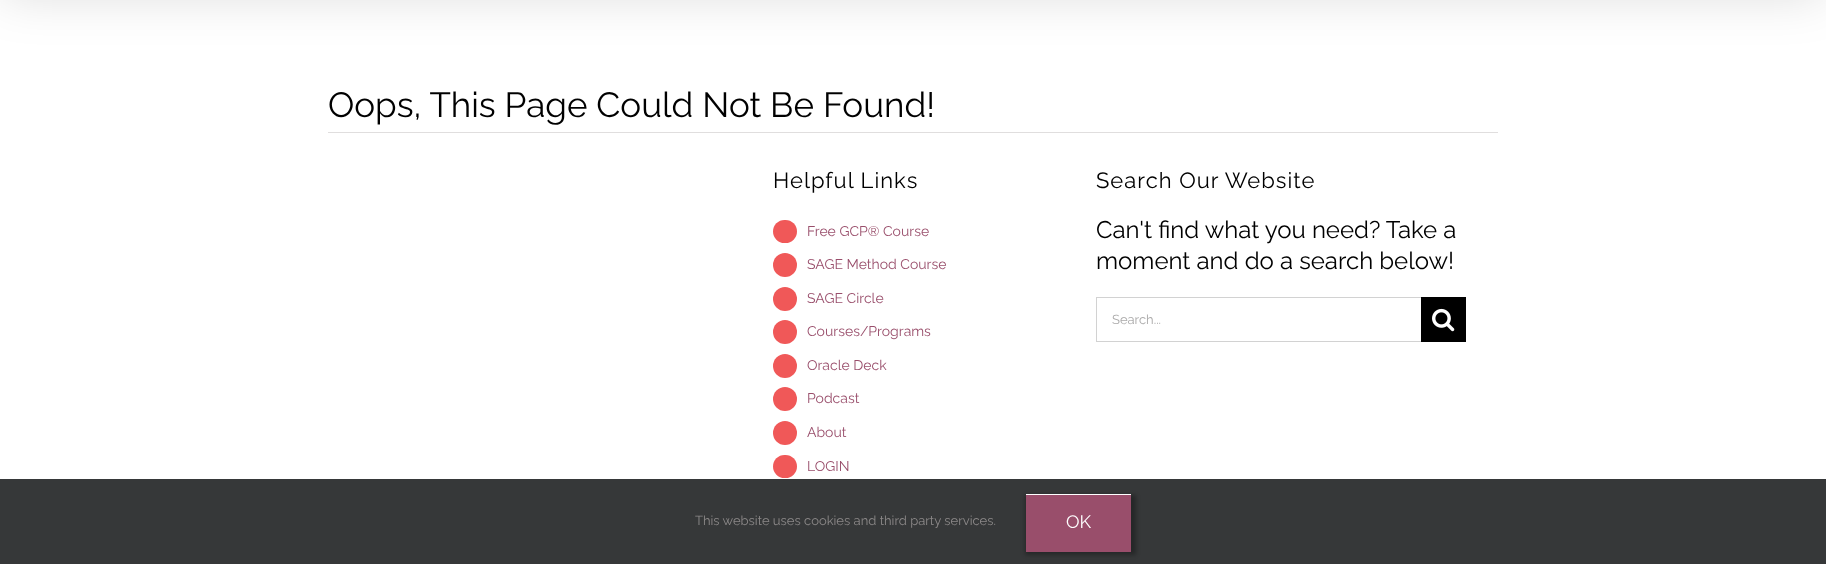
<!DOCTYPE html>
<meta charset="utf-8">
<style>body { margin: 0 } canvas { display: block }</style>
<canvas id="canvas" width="1826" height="564"></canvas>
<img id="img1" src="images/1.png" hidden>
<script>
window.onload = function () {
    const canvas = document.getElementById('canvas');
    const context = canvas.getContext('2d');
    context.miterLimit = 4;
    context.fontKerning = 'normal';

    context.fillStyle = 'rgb(255, 255, 255)';
    context.fillRect(0, 0, 1826, 564);
    context.fillStyle = 'rgba(0, 0, 0, 0.14)';
    context.filter = 'blur(25px)';
    context.beginPath();
    context.rect(2, -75, 1822, 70);
    context.fill();
    context.filter = 'none';
    context.fillStyle = 'rgb(224, 222, 222)';
    context.fillRect(328, 132, 1170, 1);
    context.fillStyle = 'rgb(240, 88, 88)';
    context.beginPath();
    context.roundRect(773, 220, 24, 23, 11.5);
    context.fill();
    context.beginPath();
    context.arc(785, 265, 12, 0, 2 * Math.PI);
    context.fill();
    context.beginPath();
    context.arc(785, 299, 12, 0, 2 * Math.PI);
    context.fill();
    context.beginPath();
    context.arc(785, 332, 12, 0, 2 * Math.PI);
    context.fill();
    context.beginPath();
    context.arc(785, 366, 12, 0, 2 * Math.PI);
    context.fill();
    context.beginPath();
    context.arc(785, 399, 12, 0, 2 * Math.PI);
    context.fill();
    context.beginPath();
    context.arc(785, 433, 12, 0, 2 * Math.PI);
    context.fill();
    context.beginPath();
    context.roundRect(773, 455, 24, 23, 11.5);
    context.fill();
    context.fillStyle = 'rgb(210, 210, 210)';
    context.fillRect(1096, 297, 325, 1);
    context.fillRect(1096, 341, 325, 1);
    context.fillRect(1096, 297, 1, 45);
    context.fillStyle = 'rgb(0, 0, 0)';
    context.fillRect(1421, 297, 45, 45);
    context.drawImage(document.getElementById('img1'), 1432, 308, 23, 24);
    context.fillStyle = 'rgb(54, 56, 57)';
    context.fillRect(0, 479, 1826, 85);
    context.fillStyle = 'rgba(0, 0, 0, 0.3)';
    context.filter = 'blur(2px)';
    context.beginPath();
    context.rect(1025, 495, 111, 60);
    context.fill();
    context.filter = 'none';
    context.fillStyle = 'rgb(153, 78, 107)';
    context.fillRect(1026, 495, 105, 57);
    context.fillStyle = 'rgb(255, 255, 255)';
    context.fillRect(1026, 494, 105, 1);
    context.font = '35px Raleway';
    context.fillStyle = 'rgb(0, 0, 0)';
    context.fillText('Oops, This Page Could Not Be Found!', 328, 117);
    context.letterSpacing = '1px';
    context.font = '22px Raleway';
    context.fillText('Helpful Links', 773, 188);
    context.letterSpacing = '0px';
    context.font = '14px Raleway';
    context.fillStyle = 'rgb(153, 78, 107)';
    context.fillText('Free GCP® Course', 807, 236);
    context.fillText('SAGE Method Course', 807, 269);
    context.fillText('SAGE Circle', 807, 303);
    context.fillText('Courses/Programs', 807, 336);
    context.fillText('Oracle Deck', 807, 370);
    context.fillText('Podcast', 807, 403);
    context.fillText('About', 807, 437);
    context.fillText('LOGIN', 807, 471);
    context.letterSpacing = '1px';
    context.font = '22px Raleway';
    context.fillStyle = 'rgb(0, 0, 0)';
    context.fillText('Search Our Website', 1096, 188);
    context.letterSpacing = '0px';
    context.font = '24px Raleway';
    context.fillText('Can\'t find what you need? Take a', 1096, 238);
    context.fillText('moment and do a search below!', 1096, 269);
    context.font = '13px Raleway';
    context.fillStyle = 'rgb(170, 169, 169)';
    context.fillText('Search...', 1112, 324);
    context.fillStyle = 'rgb(140, 137, 137)';
    context.fillText('This website uses cookies and third party services.', 695, 525);
    context.font = '18px Raleway';
    context.fillStyle = 'rgb(255, 255, 255)';
    context.fillText('OK', 1066, 528);
};
</script>
